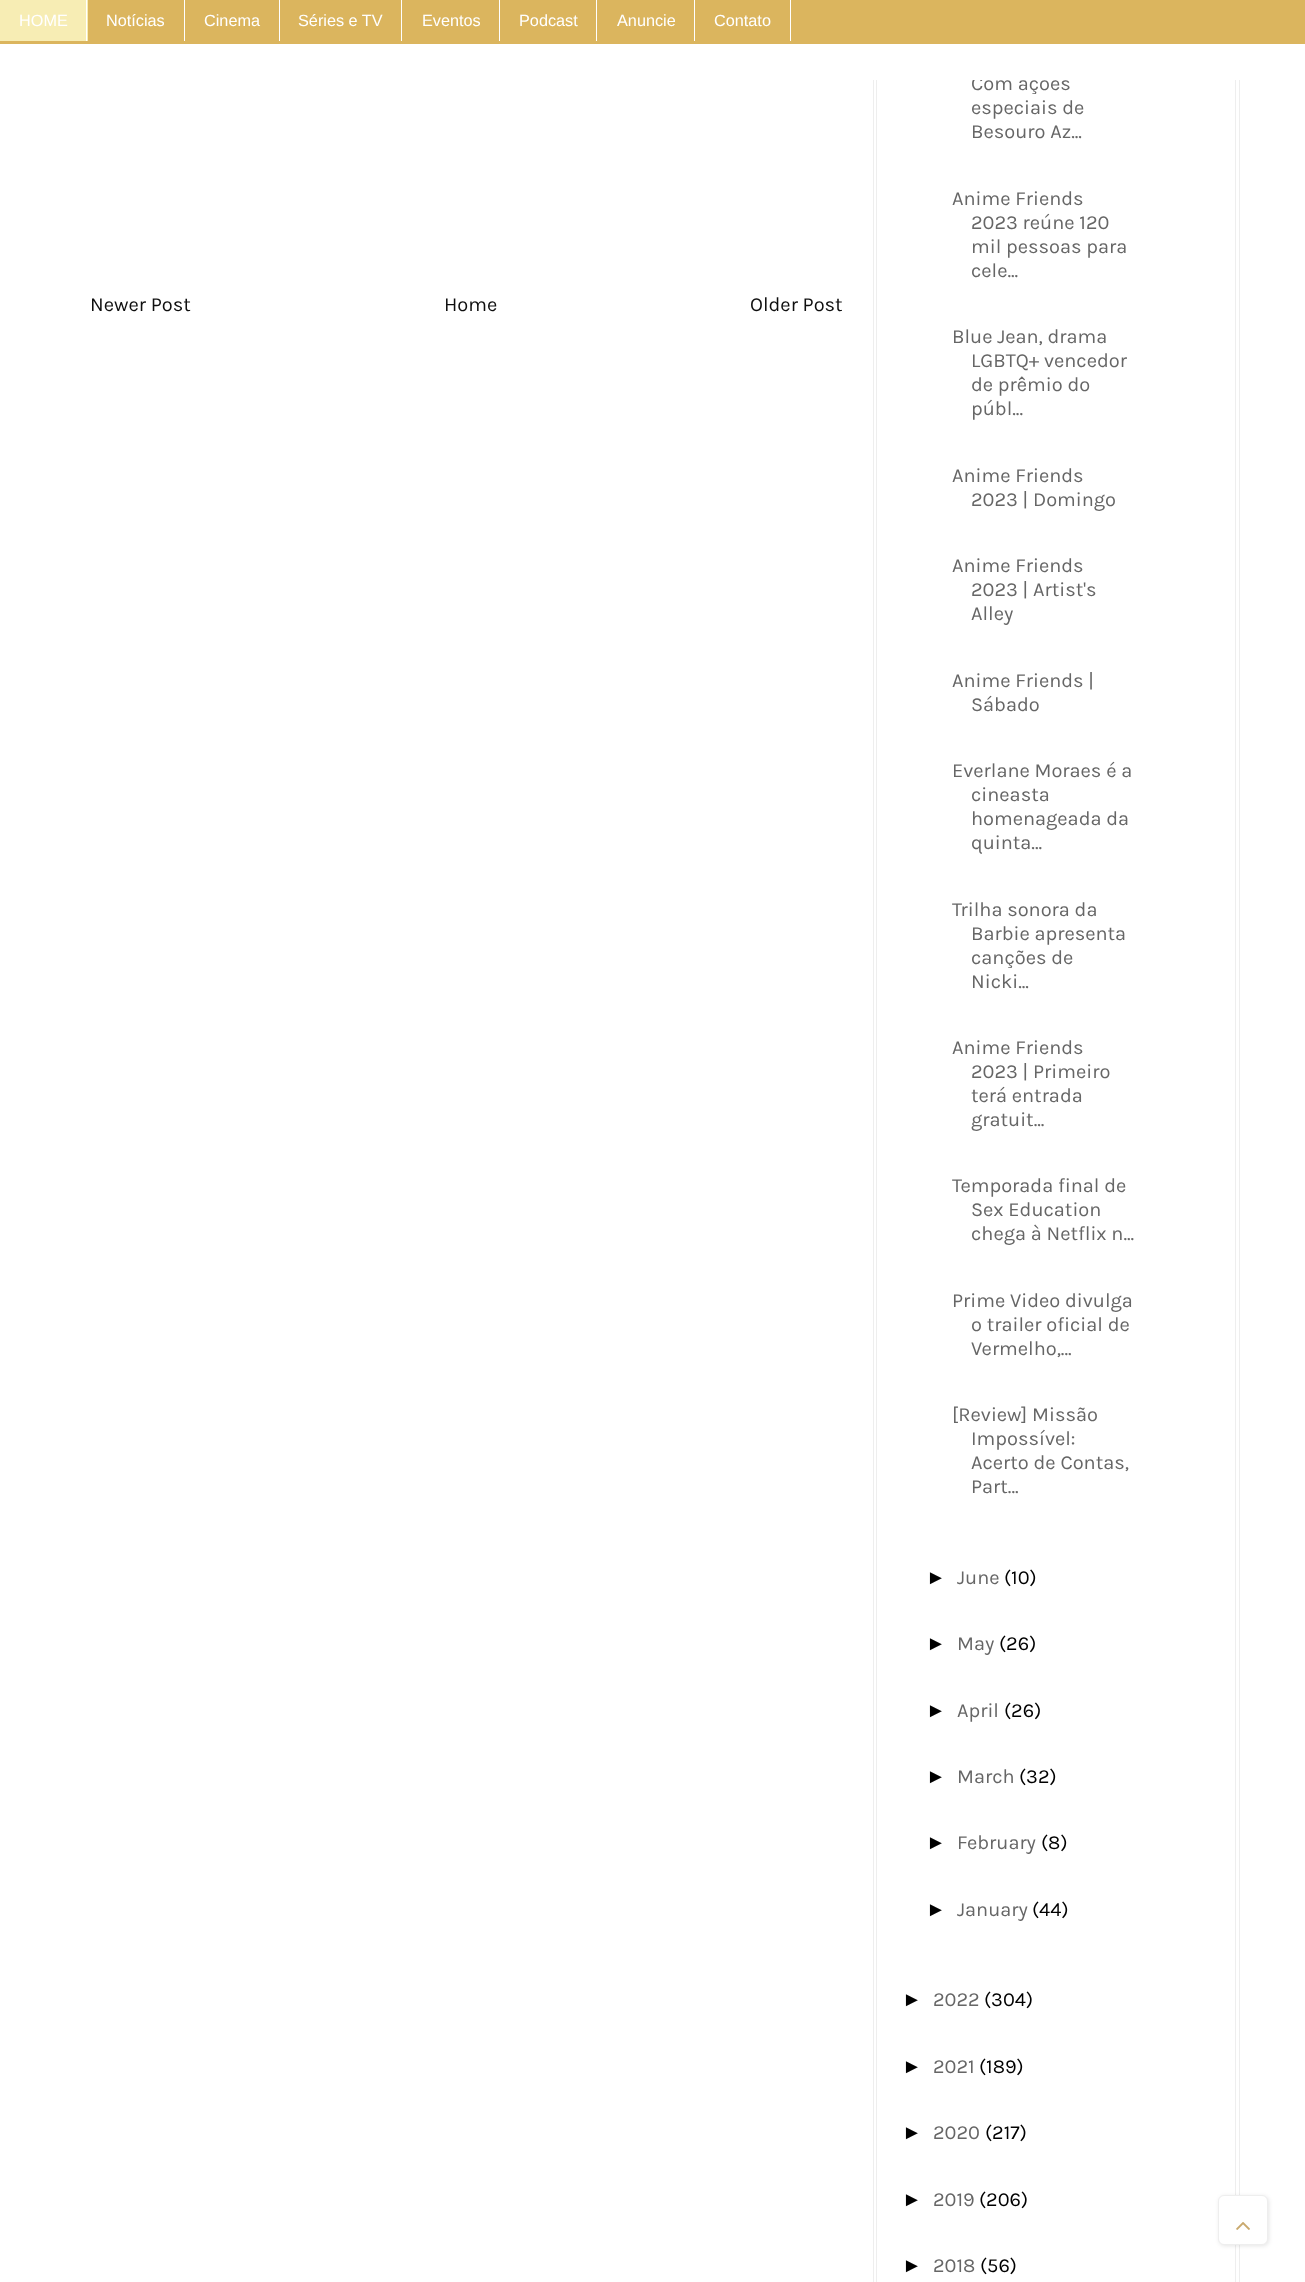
<!DOCTYPE html>
<meta charset="utf-8">
<style>body { margin: 0 } canvas { display: block }</style>
<canvas id="canvas" width="1305" height="2282"></canvas>
<img id="img1" src="images/1.png" hidden>
<script>
window.onload = function () {
    const canvas = document.getElementById('canvas');
    const context = canvas.getContext('2d');
    context.miterLimit = 4;
    context.fontKerning = 'normal';

    context.fillStyle = 'rgb(255, 255, 255)';
    context.fillRect(0, 0, 1305, 2282);
    context.strokeStyle = 'rgb(238, 238, 238)';
    context.strokeRect(873.5, -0.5, 366, 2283);
    context.strokeRect(876.5, -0.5, 359, 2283);
    context.fillStyle = 'rgb(219, 181, 94)';
    context.fillRect(0, 0, 1305, 44);
    context.fillStyle = 'rgb(247, 237, 180)';
    context.fillRect(0, 0, 88, 41);
    context.fillStyle = 'rgb(255, 255, 255)';
    context.fillRect(86, 0, 1, 41);
    context.fillRect(184, 0, 1, 41);
    context.fillRect(279, 0, 1, 41);
    context.fillRect(401, 0, 1, 41);
    context.fillRect(499, 0, 1, 41);
    context.fillRect(596, 0, 1, 41);
    context.fillRect(694, 0, 1, 41);
    context.fillRect(790, 0, 1, 41);
    context.fillStyle = 'rgba(0, 0, 0, 0.1)';
    context.filter = 'blur(2px)';
    context.beginPath();
    context.roundRect(1219, 2196, 50, 50, 6);
    context.fill();
    context.filter = 'none';
    context.fillStyle = 'rgb(255, 255, 255)';
    context.beginPath();
    context.roundRect(1218.5, 2195.5, 49, 49, 5.5);
    context.fill();
    context.stroke();
    context.drawImage(document.getElementById('img1'), 1236, 2222, 14, 8);
    context.font = '16.25px Liberation Sans';
    context.fillText('HOME', 19, 26);
    context.fillText('Notícias', 106, 26);
    context.fillText('Cinema', 204, 26);
    context.fillText('Séries e TV', 298, 26);
    context.fillText('Eventos', 422, 26);
    context.fillText('Podcast', 519, 26);
    context.fillText('Anuncie', 617, 26);
    context.fillText('Contato', 714, 26);
    context.font = '20px Karla';
    context.fillStyle = 'rgb(14, 14, 14)';
    context.fillText('Newer Post', 90, 311);
    context.fillText('Home', 444, 311);
    context.fillText('Older Post', 750, 311);
    context.fillStyle = 'rgb(102, 102, 102)';
    context.fillText('Com ações', 971, 90);
    context.fillStyle = 'rgb(255, 255, 255)';
    context.fillRect(873, 44, 367, 36);
    context.fillStyle = 'rgb(102, 102, 102)';
    context.fillText('especiais de', 971, 114);
    context.fillText('Besouro Az...', 971, 138);
    context.fillText('Anime Friends', 952, 205);
    context.fillText('2023 reúne 120', 971, 229);
    context.fillText('mil pessoas para', 971, 253);
    context.fillText('cele...', 971, 277);
    context.fillText('Blue Jean, drama', 952, 343);
    context.fillText('LGBTQ+ vencedor', 971, 367);
    context.fillText('de prêmio do', 971, 391);
    context.fillText('públ...', 971, 415);
    context.fillText('Anime Friends', 952, 482);
    context.fillText('2023 | Domingo', 971, 506);
    context.fillText('Anime Friends', 952, 572);
    context.fillText('2023 | Artist\'s', 971, 596);
    context.fillText('Alley', 971, 620);
    context.fillText('Anime Friends |', 952, 687);
    context.fillText('Sábado', 971, 711);
    context.fillText('Everlane Moraes é a', 952, 777);
    context.fillText('cineasta', 971, 801);
    context.fillText('homenageada da', 971, 825);
    context.fillText('quinta...', 971, 849);
    context.fillText('Trilha sonora da', 952, 916);
    context.fillText('Barbie apresenta', 971, 940);
    context.fillText('canções de', 971, 964);
    context.fillText('Nicki...', 971, 988);
    context.fillText('Anime Friends', 952, 1054);
    context.fillText('2023 | Primeiro', 971, 1078);
    context.fillText('terá entrada', 971, 1102);
    context.fillText('gratuit...', 971, 1126);
    context.fillText('Temporada final de', 952, 1192);
    context.fillText('Sex Education', 971, 1216);
    context.fillText('chega à Netflix n...', 971, 1240);
    context.fillText('Prime Video divulga', 952, 1307);
    context.fillText('o trailer oficial de', 971, 1331);
    context.fillText('Vermelho,...', 971, 1355);
    context.fillText('[Review] Missão', 952, 1421);
    context.fillText('Impossível:', 971, 1445);
    context.fillText('Acerto de Contas,', 971, 1469);
    context.fillText('Part...', 971, 1493);
    context.font = '20px Liberation Sans';
    context.fillStyle = 'rgb(0, 0, 0)';
    context.fillText('►', 926, 1584);
    context.font = '20px Karla';
    context.fillStyle = 'rgb(102, 102, 102)';
    context.fillText('June', 957, 1584);
    context.fillStyle = 'rgb(0, 0, 0)';
    context.fillText('(10)', 1004, 1584);
    context.font = '20px Liberation Sans';
    context.fillText('►', 926, 1650);
    context.font = '20px Karla';
    context.fillStyle = 'rgb(102, 102, 102)';
    context.fillText('May', 957, 1650);
    context.fillStyle = 'rgb(0, 0, 0)';
    context.fillText('(26)', 999, 1650);
    context.font = '20px Liberation Sans';
    context.fillText('►', 926, 1717);
    context.font = '20px Karla';
    context.fillStyle = 'rgb(102, 102, 102)';
    context.fillText('April', 957, 1717);
    context.fillStyle = 'rgb(0, 0, 0)';
    context.fillText('(26)', 1004, 1717);
    context.font = '20px Liberation Sans';
    context.fillText('►', 926, 1783);
    context.font = '20px Karla';
    context.fillStyle = 'rgb(102, 102, 102)';
    context.fillText('March', 957, 1783);
    context.fillStyle = 'rgb(0, 0, 0)';
    context.fillText('(32)', 1019, 1783);
    context.font = '20px Liberation Sans';
    context.fillText('►', 926, 1849);
    context.font = '20px Karla';
    context.fillStyle = 'rgb(102, 102, 102)';
    context.fillText('February', 957, 1849);
    context.fillStyle = 'rgb(0, 0, 0)';
    context.fillText('(8)', 1041, 1849);
    context.font = '20px Liberation Sans';
    context.fillText('►', 926, 1916);
    context.font = '20px Karla';
    context.fillStyle = 'rgb(102, 102, 102)';
    context.fillText('January', 957, 1916);
    context.fillStyle = 'rgb(0, 0, 0)';
    context.fillText('(44)', 1032, 1916);
    context.font = '20px Liberation Sans';
    context.fillText('►', 902, 2006);
    context.font = '20px Karla';
    context.fillStyle = 'rgb(102, 102, 102)';
    context.fillText('2022', 933, 2006);
    context.fillStyle = 'rgb(0, 0, 0)';
    context.fillText('(304)', 984, 2006);
    context.font = '20px Liberation Sans';
    context.fillText('►', 902, 2073);
    context.font = '20px Karla';
    context.fillStyle = 'rgb(102, 102, 102)';
    context.fillText('2021', 933, 2073);
    context.fillStyle = 'rgb(0, 0, 0)';
    context.fillText('(189)', 979, 2073);
    context.font = '20px Liberation Sans';
    context.fillText('►', 902, 2139);
    context.font = '20px Karla';
    context.fillStyle = 'rgb(102, 102, 102)';
    context.fillText('2020', 933, 2139);
    context.fillStyle = 'rgb(0, 0, 0)';
    context.fillText('(217)', 985, 2139);
    context.font = '20px Liberation Sans';
    context.fillText('►', 902, 2206);
    context.font = '20px Karla';
    context.fillStyle = 'rgb(102, 102, 102)';
    context.fillText('2019', 933, 2206);
    context.fillStyle = 'rgb(0, 0, 0)';
    context.fillText('(206)', 979, 2206);
    context.font = '20px Liberation Sans';
    context.fillText('►', 902, 2272);
    context.font = '20px Karla';
    context.fillStyle = 'rgb(102, 102, 102)';
    context.fillText('2018', 933, 2272);
    context.fillStyle = 'rgb(0, 0, 0)';
    context.fillText('(56)', 980, 2272);
};
</script>
